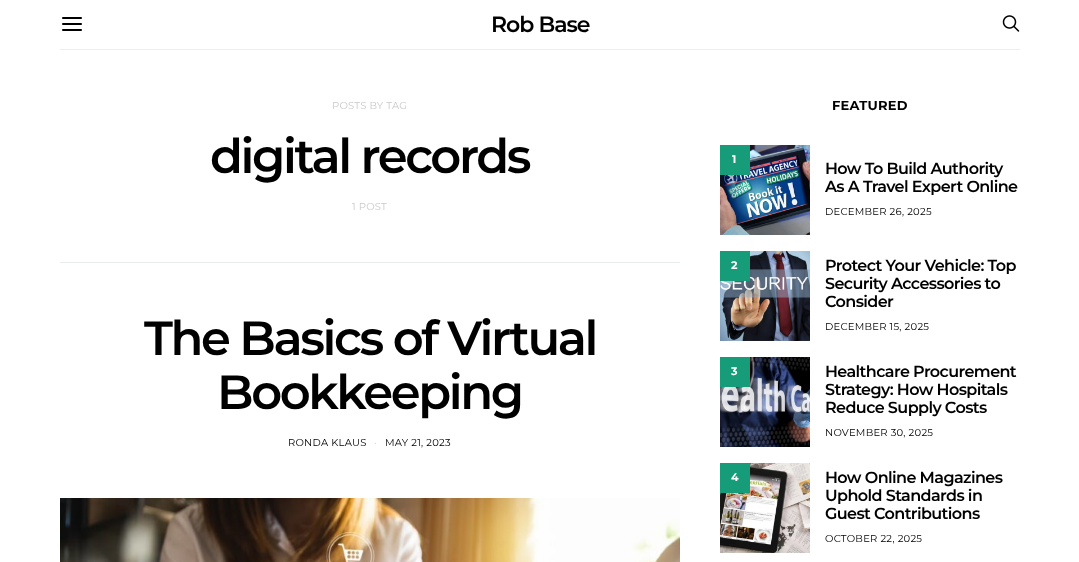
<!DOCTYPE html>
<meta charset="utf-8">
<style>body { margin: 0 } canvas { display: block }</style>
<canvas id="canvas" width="1079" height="562"></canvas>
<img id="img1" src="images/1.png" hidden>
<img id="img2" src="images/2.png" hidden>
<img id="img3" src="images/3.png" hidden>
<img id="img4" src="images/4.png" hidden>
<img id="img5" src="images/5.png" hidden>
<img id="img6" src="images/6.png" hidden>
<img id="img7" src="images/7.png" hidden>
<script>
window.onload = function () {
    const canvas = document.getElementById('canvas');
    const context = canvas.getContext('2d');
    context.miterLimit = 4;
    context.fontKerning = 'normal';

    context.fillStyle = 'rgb(255, 255, 255)';
    context.fillRect(0, 0, 1079, 562);
    context.fillStyle = 'rgb(238, 238, 238)';
    context.fillRect(60, 49, 960, 1);
    context.drawImage(document.getElementById('img1'), 62, 17, 20, 14);
    context.drawImage(document.getElementById('img2'), 1002, 15, 18, 17);
    context.fillStyle = 'rgb(233, 236, 239)';
    context.fillRect(60, 262, 620, 1);
    context.drawImage(document.getElementById('img3'), 60, 498, 620, 64);
    context.drawImage(document.getElementById('img4'), 720, 145, 90, 90);
    context.fillStyle = 'rgb(22, 156, 120)';
    context.fillRect(720, 145, 30, 30);
    context.drawImage(document.getElementById('img5'), 720, 251, 90, 90);
    context.fillRect(720, 251, 30, 30);
    context.drawImage(document.getElementById('img6'), 720, 357, 90, 90);
    context.fillRect(720, 357, 30, 30);
    context.drawImage(document.getElementById('img7'), 720, 463, 90, 90);
    context.fillRect(720, 463, 30, 30);
    context.letterSpacing = '-1px';
    context.font = '600 22px Montserrat';
    context.fillStyle = 'rgb(0, 0, 0)';
    context.fillText('Rob Base', 491, 32);
    context.letterSpacing = '0.25px';
    context.font = '10px Montserrat';
    context.fillStyle = 'rgb(201, 201, 201)';
    context.fillText('POSTS BY TAG', 332, 109);
    context.letterSpacing = '-2.4px';
    context.font = '600 48px Montserrat';
    context.fillStyle = 'rgb(0, 0, 0)';
    context.fillText('digital records', 210, 173);
    context.letterSpacing = '0.25px';
    context.font = '10px Montserrat';
    context.fillStyle = 'rgb(201, 201, 201)';
    context.fillText('1 POST', 352, 210);
    context.letterSpacing = '-2.4px';
    context.font = '600 48px Montserrat';
    context.fillStyle = 'rgb(0, 0, 0)';
    context.fillText('The Basics of Virtual', 144, 355);
    context.fillText('Bookkeeping', 217, 409);
    context.letterSpacing = '0.25px';
    context.font = '10px Montserrat';
    context.fillText('RONDA KLAUS', 288, 446);
    context.fillStyle = 'rgb(201, 201, 201)';
    context.fillText('·', 374, 446);
    context.fillStyle = 'rgb(0, 0, 0)';
    context.fillText('MAY 21, 2023', 385, 446);
    context.font = 'bold 13px Montserrat';
    context.fillText('FEATURED', 832, 110);
    context.letterSpacing = '0px';
    context.font = 'bold 11px Montserrat';
    context.fillStyle = 'rgb(255, 255, 255)';
    context.fillText('1', 732, 163);
    context.letterSpacing = '-0.6px';
    context.font = '600 16px Montserrat';
    context.fillStyle = 'rgb(0, 0, 0)';
    context.fillText('How To Build Authority', 825, 174);
    context.fillText('As A Travel Expert Online', 825, 192);
    context.letterSpacing = '0.25px';
    context.font = '10px Montserrat';
    context.fillText('DECEMBER 26, 2025', 825, 215);
    context.letterSpacing = '0px';
    context.font = 'bold 11px Montserrat';
    context.fillStyle = 'rgb(255, 255, 255)';
    context.fillText('2', 731, 269);
    context.letterSpacing = '-0.6px';
    context.font = '600 16px Montserrat';
    context.fillStyle = 'rgb(0, 0, 0)';
    context.fillText('Protect Your Vehicle: Top', 825, 271);
    context.fillText('Security Accessories to', 825, 289);
    context.fillText('Consider', 825, 307);
    context.letterSpacing = '0.25px';
    context.font = '10px Montserrat';
    context.fillText('DECEMBER 15, 2025', 825, 330);
    context.letterSpacing = '0px';
    context.font = 'bold 11px Montserrat';
    context.fillStyle = 'rgb(255, 255, 255)';
    context.fillText('3', 731, 375);
    context.letterSpacing = '-0.6px';
    context.font = '600 16px Montserrat';
    context.fillStyle = 'rgb(0, 0, 0)';
    context.fillText('Healthcare Procurement', 825, 377);
    context.fillText('Strategy: How Hospitals', 825, 395);
    context.fillText('Reduce Supply Costs', 825, 413);
    context.letterSpacing = '0.25px';
    context.font = '10px Montserrat';
    context.fillText('NOVEMBER 30, 2025', 825, 436);
    context.letterSpacing = '0px';
    context.font = 'bold 11px Montserrat';
    context.fillStyle = 'rgb(255, 255, 255)';
    context.fillText('4', 731, 481);
    context.letterSpacing = '-0.6px';
    context.font = '600 16px Montserrat';
    context.fillStyle = 'rgb(0, 0, 0)';
    context.fillText('How Online Magazines', 825, 483);
    context.fillText('Uphold Standards in', 825, 501);
    context.fillText('Guest Contributions', 825, 519);
    context.letterSpacing = '0.25px';
    context.font = '10px Montserrat';
    context.fillText('OCTOBER 22, 2025', 825, 542);
};
</script>
